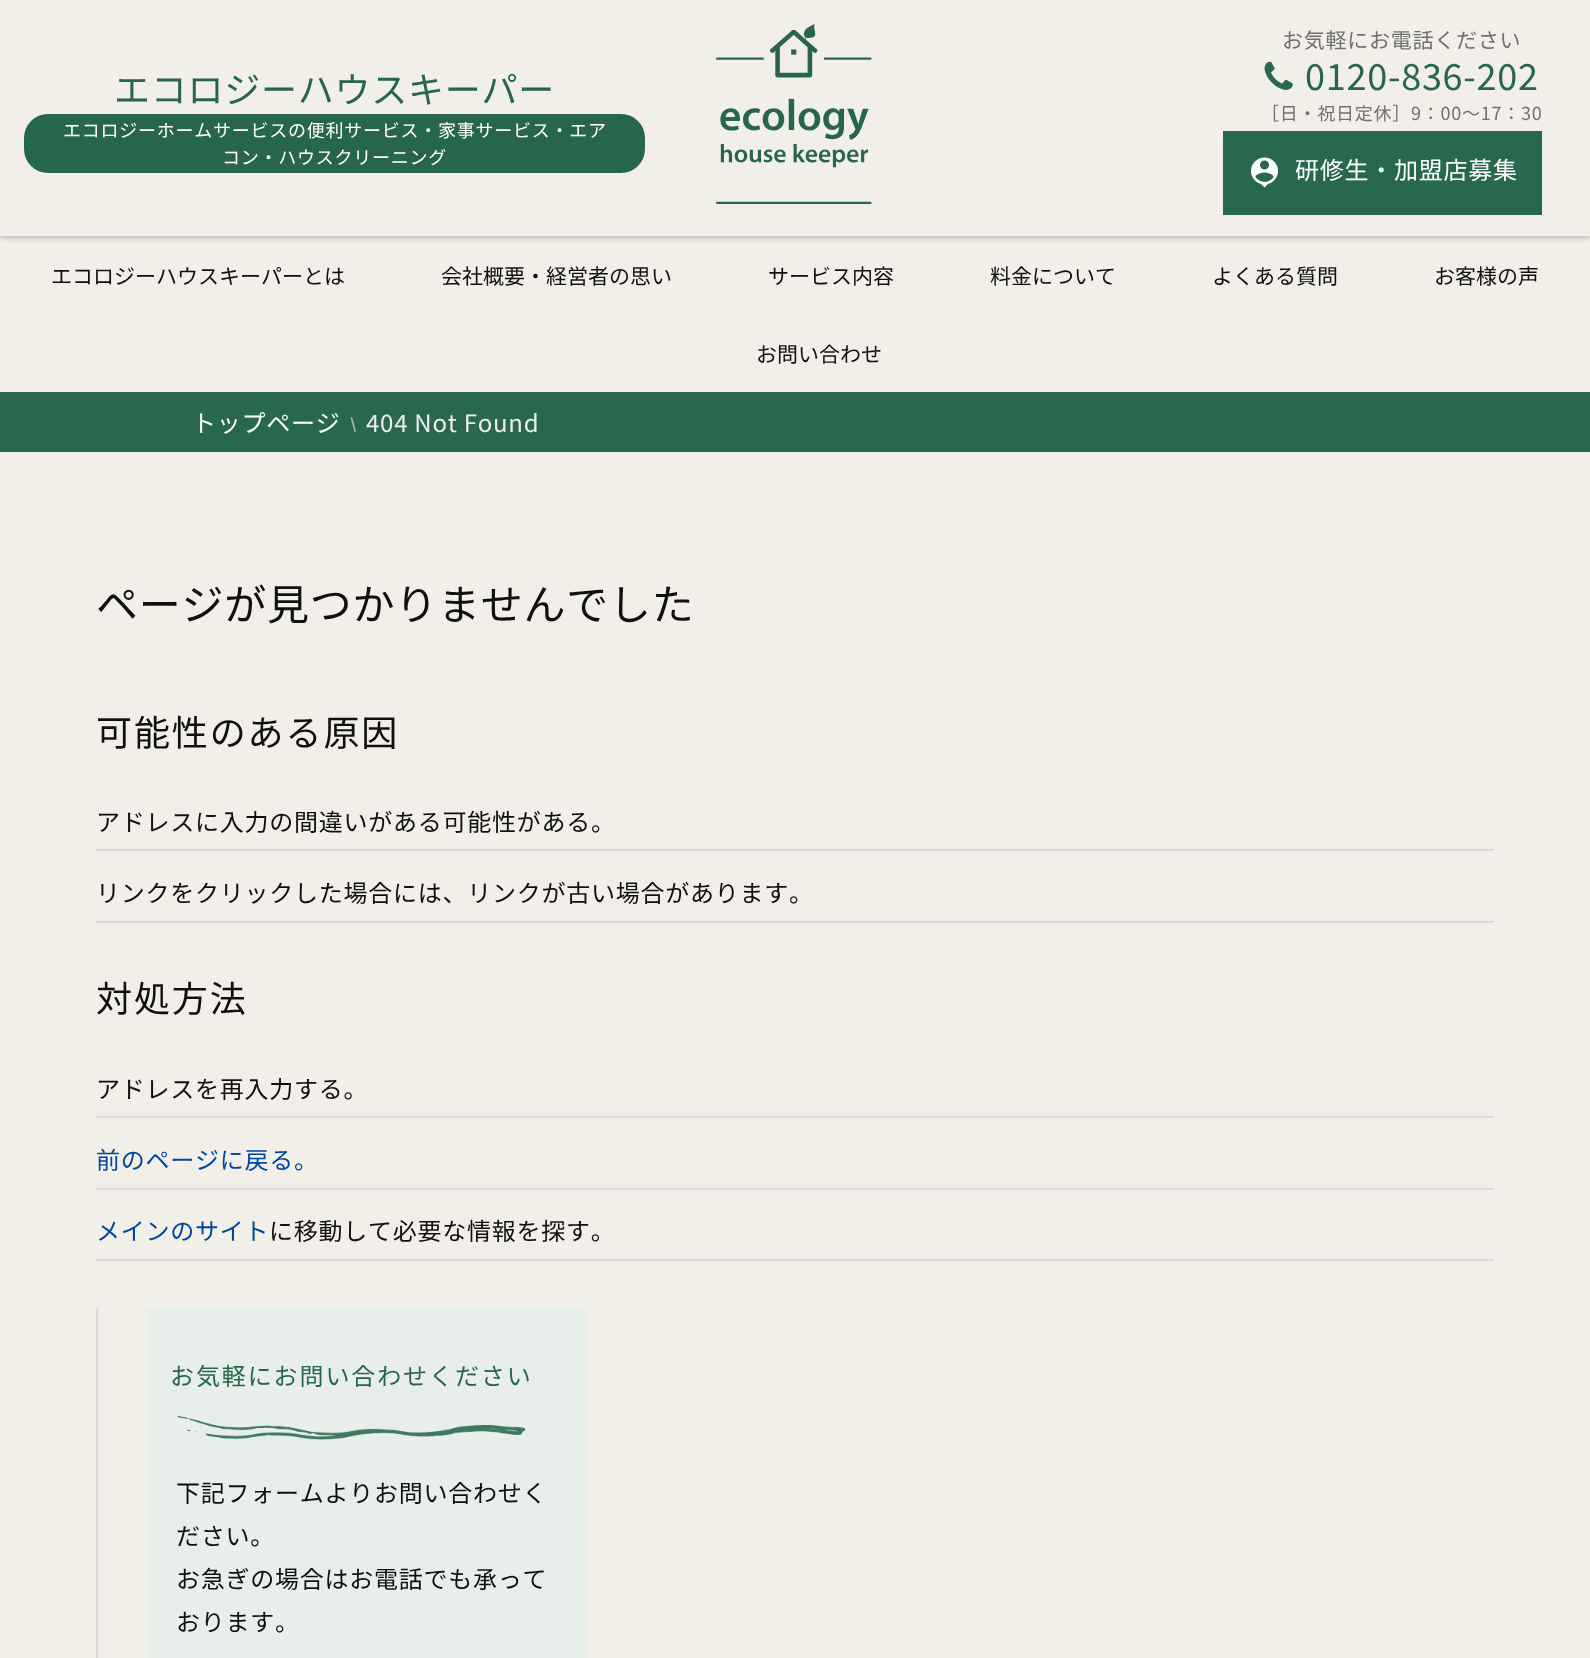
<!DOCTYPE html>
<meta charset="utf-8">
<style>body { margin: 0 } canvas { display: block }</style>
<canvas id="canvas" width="1590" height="1658"></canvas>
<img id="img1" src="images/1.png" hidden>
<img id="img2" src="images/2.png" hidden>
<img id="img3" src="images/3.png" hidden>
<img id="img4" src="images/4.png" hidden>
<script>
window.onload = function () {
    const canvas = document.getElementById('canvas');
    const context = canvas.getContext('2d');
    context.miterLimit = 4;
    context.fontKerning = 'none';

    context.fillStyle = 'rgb(241, 239, 231)';
    context.fillRect(0, 0, 1590, 1658);
    context.save();
    context.beginPath();
    context.moveTo(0, 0);
    context.lineTo(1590, 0);
    context.lineTo(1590, 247);
    context.lineTo(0, 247);
    context.closePath();
    context.moveTo(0, 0);
    context.lineTo(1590, 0);
    context.lineTo(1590, 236);
    context.lineTo(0, 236);
    context.closePath();
    context.clip('evenodd');
    context.fillStyle = 'rgba(0, 0, 0, 0.3)';
    context.filter = 'blur(3px)';
    context.beginPath();
    context.rect(0, 2, 1590, 235);
    context.fill();
    context.filter = 'none';
    context.restore();
    context.fillStyle = 'rgb(39, 102, 76)';
    context.beginPath();
    context.roundRect(24, 114, 621, 59, 24);
    context.fill();
    context.drawImage(document.getElementById('img1'), 716, 24, 156, 180);
    context.drawImage(document.getElementById('img2'), 1264, 61, 29, 29);
    context.fillStyle = 'rgb(40, 104, 78)';
    context.fillRect(1223, 131, 319, 84);
    context.drawImage(document.getElementById('img3'), 1251, 157, 27, 31);
    context.fillRect(0, 392, 1590, 60);
    context.fillStyle = 'rgb(181, 181, 181)';
    context.beginPath();
    context.moveTo(350.5, 417.5);
    context.lineTo(352, 417);
    context.lineTo(356, 431.5);
    context.lineTo(354.5, 432);
    context.closePath();
    context.fill();
    context.fillStyle = 'rgb(219, 219, 219)';
    context.fillRect(96, 849, 1398, 2);
    context.fillRect(96, 921, 1398, 2);
    context.fillRect(96, 1116, 1398, 2);
    context.fillRect(96, 1188, 1398, 2);
    context.fillRect(96, 1259, 1398, 2);
    context.fillRect(96, 1308, 2, 350);
    context.fillStyle = 'rgb(232, 239, 235)';
    context.fillRect(146, 1308, 442, 350);
    context.drawImage(document.getElementById('img4'), 177, 1416, 349, 24);
    context.letterSpacing = '0.75px';
    context.font = '36px Noto Sans JP';
    context.fillStyle = 'rgb(39, 102, 76)';
    context.fillText('エコロジーハウスキーパー', 114, 103);
    context.font = '18px Noto Sans JP';
    context.fillStyle = 'rgb(255, 255, 255)';
    context.fillText('エコロジーホームサービスの便利サービス・家事サービス・エア', 63, 137);
    context.fillText('コン・ハウスクリーニング', 222, 164);
    context.font = '21px Noto Sans JP';
    context.fillStyle = 'rgb(112, 112, 112)';
    context.fillText('お気軽にお電話ください', 1282, 48);
    context.font = '36px Noto Sans JP';
    context.fillStyle = 'rgb(39, 102, 76)';
    context.fillText('0120-836-202', 1305, 90);
    context.font = '18px Noto Sans JP';
    context.fillStyle = 'rgb(112, 112, 112)';
    context.fillText('［日・祝日定休］9：00〜17：30', 1261, 120);
    context.font = '24px Noto Sans JP';
    context.fillStyle = 'rgb(255, 255, 255)';
    context.fillText('研修生・加盟店募集', 1295, 179);
    context.letterSpacing = '0px';
    context.font = '21px Noto Sans JP';
    context.fillStyle = 'rgb(16, 16, 16)';
    context.fillText('エコロジーハウスキーパーとは', 51, 284);
    context.fillText('会社概要・経営者の思い', 441, 284);
    context.fillText('サービス内容', 768, 284);
    context.fillText('料金について', 990, 284);
    context.fillText('よくある質問', 1212, 284);
    context.fillText('お客様の声', 1434, 284);
    context.fillText('お問い合わせ', 756, 362);
    context.letterSpacing = '0.75px';
    context.font = '24px Noto Sans JP';
    context.fillStyle = 'rgb(255, 255, 255)';
    context.fillText('トップページ', 192, 432);
    context.fillStyle = 'rgb(238, 238, 238)';
    context.fillText('404 Not Found', 366, 432);
    context.font = '42px Noto Sans JP';
    context.fillStyle = 'rgb(16, 16, 16)';
    context.fillText('ページが見つかりませんでした', 96, 620);
    context.letterSpacing = '1.9px';
    context.font = '36px Noto Sans JP';
    context.fillText('可能性のある原因', 96, 746);
    context.letterSpacing = '0.75px';
    context.font = '24px Noto Sans JP';
    context.fillText('アドレスに入力の間違いがある可能性がある。', 96, 831);
    context.fillText('リンクをクリックした場合には、リンクが古い場合があります。', 96, 902);
    context.letterSpacing = '1.9px';
    context.font = '36px Noto Sans JP';
    context.fillText('対処方法', 96, 1012);
    context.letterSpacing = '0.75px';
    context.font = '24px Noto Sans JP';
    context.fillText('アドレスを再入力する。', 96, 1098);
    context.fillStyle = 'rgb(0, 70, 157)';
    context.fillText('前のページに戻る。', 96, 1169);
    context.fillText('メインのサイト', 96, 1240);
    context.fillStyle = 'rgb(16, 16, 16)';
    context.fillText('に移動して必要な情報を探す。', 269, 1240);
    context.letterSpacing = '1.9px';
    context.fillStyle = 'rgb(39, 102, 76)';
    context.fillText('お気軽にお問い合わせください', 170, 1385);
    context.letterSpacing = '0.75px';
    context.fillStyle = 'rgb(16, 16, 16)';
    context.fillText('下記フォームよりお問い合わせく', 176, 1502);
    context.fillText('ださい。', 176, 1545);
    context.fillText('お急ぎの場合はお電話でも承って', 176, 1588);
    context.fillText('おります。', 176, 1631);
};
</script>
